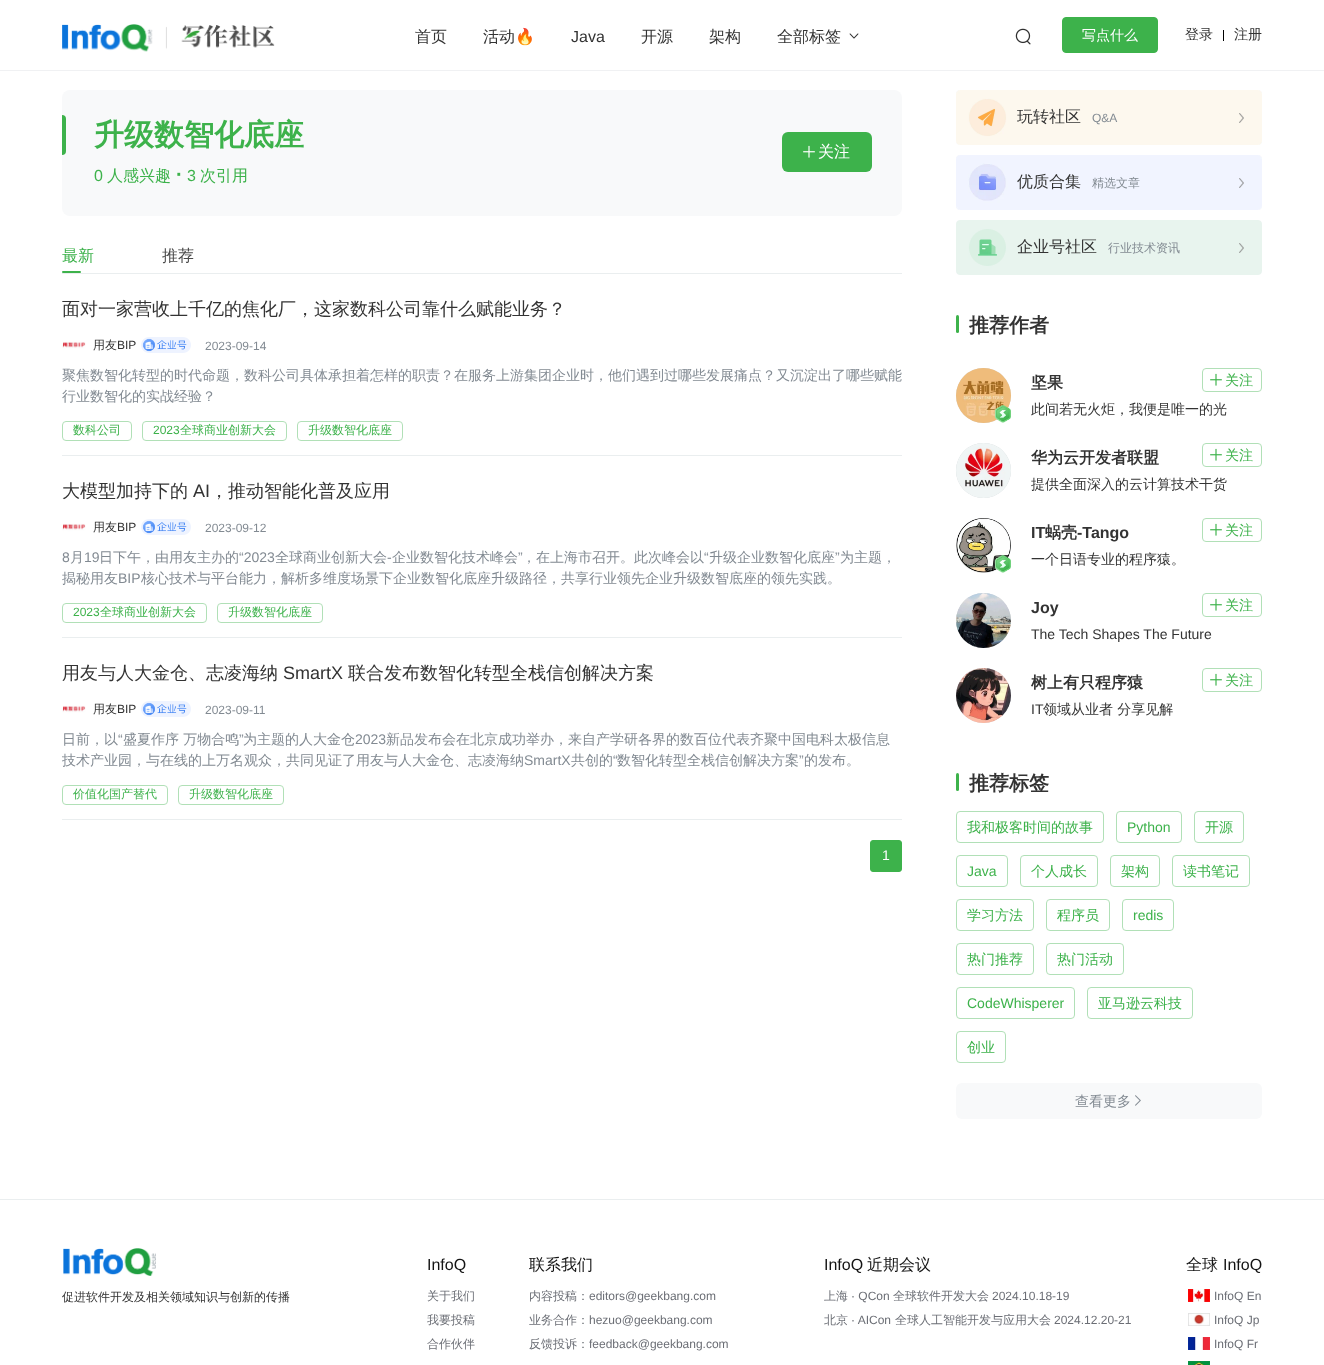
<!DOCTYPE html>
<meta charset="utf-8">
<style>body { margin: 0 } canvas { display: block }</style>
<canvas id="canvas" width="1324" height="1365"></canvas>
<img id="img1" src="images/1.png" hidden>
<img id="img2" src="images/2.png" hidden>
<img id="img3" src="images/3.png" hidden>
<img id="img4" src="images/4.png" hidden>
<img id="img5" src="images/5.png" hidden>
<img id="img6" src="images/6.png" hidden>
<img id="img7" src="images/7.png" hidden>
<img id="img8" src="images/8.png" hidden>
<img id="img9" src="images/9.png" hidden>
<img id="img10" src="images/10.png" hidden>
<img id="img11" src="images/11.png" hidden>
<img id="img12" src="images/12.png" hidden>
<img id="img13" src="images/13.png" hidden>
<img id="img14" src="images/14.png" hidden>
<img id="img15" src="images/15.png" hidden>
<img id="img16" src="images/16.png" hidden>
<img id="img17" src="images/17.png" hidden>
<img id="img18" src="images/18.png" hidden>
<img id="img19" src="images/19.png" hidden>
<img id="img20" src="images/20.png" hidden>
<img id="img21" src="images/21.png" hidden>
<img id="img22" src="images/22.png" hidden>
<img id="img23" src="images/23.png" hidden>
<img id="img24" src="images/24.png" hidden>
<img id="img25" src="images/25.png" hidden>
<img id="img26" src="images/26.png" hidden>
<img id="img27" src="images/27.png" hidden>
<img id="img28" src="images/28.png" hidden>
<script>
window.onload = function () {
    const canvas = document.getElementById('canvas');
    const context = canvas.getContext('2d');
    context.miterLimit = 4;
    context.fontKerning = 'normal';

    context.fillStyle = 'rgb(255, 255, 255)';
    context.fillRect(0, 0, 1324, 1365);
    context.fillStyle = 'rgb(240, 241, 243)';
    context.fillRect(0, 70, 1324, 1);
    context.drawImage(document.getElementById('img1'), 62, 24, 105, 28);
    context.drawImage(document.getElementById('img2'), 181, 25, 94, 23);
    context.drawImage(document.getElementById('img3'), 849, 33, 10, 6);
    context.drawImage(document.getElementById('img4'), 1015, 28, 16, 17);
    context.fillStyle = 'rgb(61, 178, 75)';
    context.beginPath();
    context.roundRect(1062.5, 17.5, 95, 35, 3.5);
    context.fill();
    context.strokeStyle = 'rgb(61, 178, 75)';
    context.stroke();
    context.fillStyle = 'rgb(0, 0, 0)';
    context.fillRect(1223, 30, 1, 11);
    context.fillStyle = 'rgb(248, 249, 250)';
    context.beginPath();
    context.roundRect(62, 90, 840, 126, 8);
    context.fill();
    context.fillStyle = 'rgb(61, 178, 75)';
    context.beginPath();
    context.roundRect(62, 115, 4, 40, [0, 4, 4, 0]);
    context.fill();
    context.beginPath();
    context.roundRect(782, 132, 90, 40, 6);
    context.fill();
    context.drawImage(document.getElementById('img5'), 803, 145, 12, 13);
    context.beginPath();
    context.roundRect(62, 271, 19, 2, 1);
    context.fill();
    context.fillStyle = 'rgb(234, 238, 239)';
    context.fillRect(62, 273, 840, 1);
    context.drawImage(document.getElementById('img6'), 62, 333, 24, 24);
    context.drawImage(document.getElementById('img7'), 141, 337, 50, 16);
    context.beginPath();
    context.roundRect(62.5, 421.5, 69, 19, 3.5);
    context.strokeStyle = 'rgb(177, 224, 183)';
    context.stroke();
    context.beginPath();
    context.roundRect(142.5, 421.5, 144, 19, 3.5);
    context.stroke();
    context.beginPath();
    context.roundRect(297.5, 421.5, 105, 19, 3.5);
    context.stroke();
    context.fillRect(62, 455, 840, 1);
    context.drawImage(document.getElementById('img6'), 62, 515, 24, 24);
    context.drawImage(document.getElementById('img8'), 141, 519, 50, 16);
    context.beginPath();
    context.roundRect(62.5, 603.5, 144, 19, 3.5);
    context.stroke();
    context.beginPath();
    context.roundRect(217.5, 603.5, 105, 19, 3.5);
    context.stroke();
    context.fillRect(62, 637, 840, 1);
    context.drawImage(document.getElementById('img6'), 62, 697, 24, 24);
    context.drawImage(document.getElementById('img7'), 141, 701, 50, 16);
    context.beginPath();
    context.roundRect(62.5, 785.5, 105, 19, 3.5);
    context.stroke();
    context.beginPath();
    context.roundRect(178.5, 785.5, 105, 19, 3.5);
    context.stroke();
    context.fillRect(62, 819, 840, 1);
    context.fillStyle = 'rgb(61, 178, 75)';
    context.beginPath();
    context.roundRect(870.5, 840.5, 31, 31, 2.5);
    context.fill();
    context.strokeStyle = 'rgb(61, 178, 75)';
    context.stroke();
    context.fillStyle = 'rgb(248, 249, 250)';
    context.beginPath();
    context.roundRect(956, 90, 306, 55, 4);
    context.fill();
    context.drawImage(document.getElementById('img9'), 956, 90, 306, 55);
    context.drawImage(document.getElementById('img10'), 1239, 113, 5, 10);
    context.beginPath();
    context.roundRect(956, 155, 306, 55, 4);
    context.fill();
    context.drawImage(document.getElementById('img11'), 956, 155, 306, 55);
    context.drawImage(document.getElementById('img12'), 1239, 178, 5, 10);
    context.beginPath();
    context.roundRect(956, 220, 306, 55, 4);
    context.fill();
    context.drawImage(document.getElementById('img13'), 956, 220, 306, 55);
    context.drawImage(document.getElementById('img14'), 1239, 243, 5, 10);
    context.fillStyle = 'rgb(61, 178, 75)';
    context.beginPath();
    context.roundRect(956, 315, 3, 18, 1.5);
    context.fill();
    context.fillStyle = 'rgb(208, 212, 215)';
    context.beginPath();
    context.arc(983.5, 395.5, 27.5, 0, 2 * Math.PI);
    context.fill();
    context.drawImage(document.getElementById('img15'), 956, 368, 55, 55);
    context.drawImage(document.getElementById('img16'), 994, 405, 17, 18);
    context.beginPath();
    context.roundRect(1202.5, 368.5, 59, 23, 3.5);
    context.strokeStyle = 'rgb(177, 224, 183)';
    context.stroke();
    context.drawImage(document.getElementById('img17'), 1210, 373, 12, 13);
    context.beginPath();
    context.arc(983.5, 470.5, 27.5, 0, 2 * Math.PI);
    context.fill();
    context.drawImage(document.getElementById('img18'), 956, 443, 55, 55);
    context.beginPath();
    context.roundRect(1202.5, 443.5, 59, 23, 3.5);
    context.stroke();
    context.drawImage(document.getElementById('img17'), 1210, 448, 12, 13);
    context.beginPath();
    context.arc(983.5, 545.5, 27.5, 0, 2 * Math.PI);
    context.fill();
    context.drawImage(document.getElementById('img19'), 956, 518, 55, 55);
    context.drawImage(document.getElementById('img20'), 994, 555, 17, 18);
    context.beginPath();
    context.roundRect(1202.5, 518.5, 59, 23, 3.5);
    context.stroke();
    context.drawImage(document.getElementById('img17'), 1210, 523, 12, 13);
    context.beginPath();
    context.arc(983.5, 620.5, 27.5, 0, 2 * Math.PI);
    context.fill();
    context.drawImage(document.getElementById('img21'), 956, 593, 55, 55);
    context.beginPath();
    context.roundRect(1202.5, 593.5, 59, 23, 3.5);
    context.stroke();
    context.drawImage(document.getElementById('img17'), 1210, 598, 12, 13);
    context.beginPath();
    context.arc(983.5, 695.5, 27.5, 0, 2 * Math.PI);
    context.fill();
    context.drawImage(document.getElementById('img22'), 956, 668, 55, 55);
    context.beginPath();
    context.roundRect(1202.5, 668.5, 59, 23, 3.5);
    context.stroke();
    context.drawImage(document.getElementById('img17'), 1210, 673, 12, 13);
    context.fillStyle = 'rgb(61, 178, 75)';
    context.beginPath();
    context.roundRect(956, 773, 3, 18, 1.5);
    context.fill();
    context.beginPath();
    context.roundRect(956.5, 811.5, 147, 31, 3.5);
    context.stroke();
    context.beginPath();
    context.roundRect(1116.5, 811.5, 65, 31, 3.5);
    context.stroke();
    context.beginPath();
    context.roundRect(1194.5, 811.5, 49, 31, 3.5);
    context.stroke();
    context.beginPath();
    context.roundRect(956.5, 855.5, 51, 31, 3.5);
    context.stroke();
    context.beginPath();
    context.roundRect(1020.5, 855.5, 77, 31, 3.5);
    context.stroke();
    context.beginPath();
    context.roundRect(1110.5, 855.5, 49, 31, 3.5);
    context.stroke();
    context.beginPath();
    context.roundRect(1172.5, 855.5, 77, 31, 3.5);
    context.stroke();
    context.beginPath();
    context.roundRect(956.5, 899.5, 77, 31, 3.5);
    context.stroke();
    context.beginPath();
    context.roundRect(1046.5, 899.5, 63, 31, 3.5);
    context.stroke();
    context.beginPath();
    context.roundRect(1122.5, 899.5, 51, 31, 3.5);
    context.stroke();
    context.beginPath();
    context.roundRect(956.5, 943.5, 77, 31, 3.5);
    context.stroke();
    context.beginPath();
    context.roundRect(1046.5, 943.5, 77, 31, 3.5);
    context.stroke();
    context.beginPath();
    context.roundRect(956.5, 987.5, 118, 31, 3.5);
    context.stroke();
    context.beginPath();
    context.roundRect(1087.5, 987.5, 105, 31, 3.5);
    context.stroke();
    context.beginPath();
    context.roundRect(956.5, 1031.5, 49, 31, 3.5);
    context.stroke();
    context.fillStyle = 'rgb(248, 249, 250)';
    context.beginPath();
    context.roundRect(956, 1083, 306, 36, 6);
    context.fill();
    context.drawImage(document.getElementById('img23'), 1135, 1095, 6, 11);
    context.fillStyle = 'rgb(234, 238, 239)';
    context.fillRect(0, 1199, 1324, 1);
    context.drawImage(document.getElementById('img24'), 63, 1248, 93, 28);
    context.drawImage(document.getElementById('img25'), 1188, 1289, 22, 13);
    context.drawImage(document.getElementById('img26'), 1188, 1313, 22, 13);
    context.drawImage(document.getElementById('img27'), 1188, 1337, 22, 13);
    context.drawImage(document.getElementById('img28'), 1188, 1361, 22, 4);
    context.font = '500 16px WenQuanYi Zen Hei';
    context.fillStyle = 'rgb(51, 51, 51)';
    context.fillText('首页', 415, 42);
    context.fillText('活动', 483, 42);
    context.font = '16px Noto Color Emoji';
    context.fillText('🔥', 515, 42);
    context.font = '16px Liberation Sans';
    context.fillText('Java', 571, 42);
    context.font = '500 16px WenQuanYi Zen Hei';
    context.fillText('开源', 641, 42);
    context.fillText('架构', 709, 42);
    context.fillText('全部标签', 777, 42);
    context.font = '500 14px WenQuanYi Zen Hei';
    context.fillStyle = 'rgb(255, 255, 255)';
    context.fillText('写点什么', 1082, 40);
    context.fillStyle = 'rgb(51, 51, 51)';
    context.fillText('登录', 1185, 39);
    context.fillText('注册', 1234, 39);
    context.font = 'bold 30px WenQuanYi Zen Hei';
    context.fillStyle = 'rgb(61, 178, 75)';
    context.fillText('升级数智化底座', 94, 145);
    context.font = '500 16px WenQuanYi Zen Hei';
    context.fillStyle = 'rgb(255, 255, 255)';
    context.fillText('关注', 818, 157);
    context.font = '16px Liberation Sans';
    context.fillStyle = 'rgb(61, 178, 75)';
    context.fillText('0', 94, 181);
    context.font = '500 16px WenQuanYi Zen Hei';
    context.fillText('人感兴趣', 107, 181);
    context.font = 'bold 20px Liberation Sans';
    context.fillText('·', 176, 181);
    context.font = '16px Liberation Sans';
    context.fillText('3', 187, 181);
    context.font = '500 16px WenQuanYi Zen Hei';
    context.fillText('次引用', 200, 181);
    context.fillText('最新', 62, 261);
    context.fillStyle = 'rgb(74, 74, 74)';
    context.fillText('推荐', 162, 261);
    context.font = '500 18px WenQuanYi Zen Hei';
    context.fillStyle = 'rgb(51, 51, 51)';
    context.fillText('面对一家营收上千亿的焦化厂，这家数科公司靠什么赋能业务？', 62, 315);
    context.font = '500 12px WenQuanYi Zen Hei';
    context.fillText('用友', 93, 349);
    context.font = '12px Liberation Sans';
    context.fillText('BIP', 117, 349);
    context.fillStyle = 'rgb(130, 138, 146)';
    context.fillText('2023-09-14', 205, 350);
    context.font = '500 14px WenQuanYi Zen Hei';
    context.fillText('聚焦数智化转型的时代命题，数科公司具体承担着怎样的职责？在服务上游集团企业时，他们遇到过哪些发展痛点？又沉淀出了哪些赋能', 62, 380);
    context.fillText('行业数智化的实战经验？', 62, 401);
    context.font = '500 12px WenQuanYi Zen Hei';
    context.fillStyle = 'rgb(61, 178, 75)';
    context.fillText('数科公司', 73, 434);
    context.font = '12px Liberation Sans';
    context.fillText('2023', 153, 434);
    context.font = '500 12px WenQuanYi Zen Hei';
    context.fillText('全球商业创新大会', 180, 434);
    context.fillText('升级数智化底座', 308, 434);
    context.font = '500 18px WenQuanYi Zen Hei';
    context.fillStyle = 'rgb(51, 51, 51)';
    context.fillText('大模型加持下的', 62, 497);
    context.font = '18px Liberation Sans';
    context.fillText('AI', 193, 497);
    context.font = '500 18px WenQuanYi Zen Hei';
    context.fillText('，推动智能化普及应用', 210, 497);
    context.font = '500 12px WenQuanYi Zen Hei';
    context.fillText('用友', 93, 531);
    context.font = '12px Liberation Sans';
    context.fillText('BIP', 117, 531);
    context.fillStyle = 'rgb(130, 138, 146)';
    context.fillText('2023-09-12', 205, 532);
    context.font = '14px Liberation Sans';
    context.fillText('8', 62, 562);
    context.font = '500 14px WenQuanYi Zen Hei';
    context.fillText('月', 70, 562);
    context.font = '14px Liberation Sans';
    context.fillText('19', 84, 562);
    context.font = '500 14px WenQuanYi Zen Hei';
    context.fillText('日下午，由用友主办的', 99, 562);
    context.font = '14px Liberation Sans';
    context.fillText('“2023', 239, 562);
    context.font = '500 14px WenQuanYi Zen Hei';
    context.fillText('全球商业创新大会', 275, 562);
    context.fillText('企业数智化技术峰会', 392, 562);
    context.font = '14px Liberation Sans';
    context.fillText('”', 518, 562);
    context.font = '500 14px WenQuanYi Zen Hei';
    context.fillText('，在上海市召开。此次峰会以', 522, 562);
    context.font = '14px Liberation Sans';
    context.fillText('“', 704, 562);
    context.font = '500 14px WenQuanYi Zen Hei';
    context.fillText('升级企业数智化底座', 709, 562);
    context.font = '14px Liberation Sans';
    context.fillText('”', 835, 562);
    context.font = '500 14px WenQuanYi Zen Hei';
    context.fillText('为主题，', 840, 562);
    context.font = '14px Liberation Sans';
    context.fillText('-', 387, 562);
    context.font = '500 14px WenQuanYi Zen Hei';
    context.fillText('揭秘用友', 62, 583);
    context.font = '14px Liberation Sans';
    context.fillText('BIP', 118, 583);
    context.font = '500 14px WenQuanYi Zen Hei';
    context.fillText('核心技术与平台能力，解析多维度场景下企业数智化底座升级路径，共享行业领先企业升级数智底座的领先实践。', 141, 583);
    context.font = '12px Liberation Sans';
    context.fillStyle = 'rgb(61, 178, 75)';
    context.fillText('2023', 73, 616);
    context.font = '500 12px WenQuanYi Zen Hei';
    context.fillText('全球商业创新大会', 100, 616);
    context.fillText('升级数智化底座', 228, 616);
    context.font = '500 18px WenQuanYi Zen Hei';
    context.fillStyle = 'rgb(51, 51, 51)';
    context.fillText('用友与人大金仓、志凌海纳', 62, 679);
    context.font = '18px Liberation Sans';
    context.fillText('SmartX', 283, 679);
    context.font = '500 18px WenQuanYi Zen Hei';
    context.fillText('联合发布数智化转型全栈信创解决方案', 348, 679);
    context.font = '500 12px WenQuanYi Zen Hei';
    context.fillText('用友', 93, 713);
    context.font = '12px Liberation Sans';
    context.fillText('BIP', 117, 713);
    context.fillStyle = 'rgb(130, 138, 146)';
    context.fillText('2023-09-11', 205, 714);
    context.font = '500 14px WenQuanYi Zen Hei';
    context.fillText('日前，以', 62, 744);
    context.font = '14px Liberation Sans';
    context.fillText('“', 118, 744);
    context.font = '500 14px WenQuanYi Zen Hei';
    context.fillText('盛夏作序 万物合鸣', 123, 744);
    context.font = '14px Liberation Sans';
    context.fillText('”', 239, 744);
    context.font = '500 14px WenQuanYi Zen Hei';
    context.fillText('为主题的人大金仓', 243, 744);
    context.font = '14px Liberation Sans';
    context.fillText('2023', 355, 744);
    context.font = '500 14px WenQuanYi Zen Hei';
    context.fillText('新品发布会在北京成功举办，来自产学研各界的数百位代表齐聚中国电科太极信息', 386, 744);
    context.fillText('技术产业园，与在线的上万名观众，共同见证了用友与人大金仓、志凌海纳', 62, 765);
    context.font = '14px Liberation Sans';
    context.fillText('SmartX', 524, 765);
    context.font = '500 14px WenQuanYi Zen Hei';
    context.fillText('共创的', 571, 765);
    context.font = '14px Liberation Sans';
    context.fillText('“', 613, 765);
    context.font = '500 14px WenQuanYi Zen Hei';
    context.fillText('数智化转型全栈信创解决方案', 617, 765);
    context.font = '14px Liberation Sans';
    context.fillText('”', 799, 765);
    context.font = '500 14px WenQuanYi Zen Hei';
    context.fillText('的发布。', 804, 765);
    context.font = '500 12px WenQuanYi Zen Hei';
    context.fillStyle = 'rgb(61, 178, 75)';
    context.fillText('价值化国产替代', 73, 798);
    context.fillText('升级数智化底座', 189, 798);
    context.font = '14px Liberation Sans';
    context.fillStyle = 'rgb(255, 255, 255)';
    context.fillText('1', 882, 860);
    context.font = '500 16px WenQuanYi Zen Hei';
    context.fillStyle = 'rgb(51, 51, 51)';
    context.fillText('玩转社区', 1017, 122);
    context.font = '12px Liberation Sans';
    context.fillStyle = 'rgb(130, 138, 146)';
    context.fillText('Q&A', 1092, 122);
    context.font = '500 16px WenQuanYi Zen Hei';
    context.fillStyle = 'rgb(51, 51, 51)';
    context.fillText('优质合集', 1017, 187);
    context.font = '500 12px WenQuanYi Zen Hei';
    context.fillStyle = 'rgb(130, 138, 146)';
    context.fillText('精选文章', 1092, 187);
    context.font = '500 16px WenQuanYi Zen Hei';
    context.fillStyle = 'rgb(51, 51, 51)';
    context.fillText('企业号社区', 1017, 252);
    context.font = '500 12px WenQuanYi Zen Hei';
    context.fillStyle = 'rgb(130, 138, 146)';
    context.fillText('行业技术资讯', 1108, 252);
    context.font = 'bold 20px WenQuanYi Zen Hei';
    context.fillStyle = 'rgb(51, 51, 51)';
    context.fillText('推荐作者', 969, 332);
    context.font = 'bold 16px WenQuanYi Zen Hei';
    context.fillText('坚果', 1031, 388);
    context.font = '500 14px WenQuanYi Zen Hei';
    context.fillStyle = 'rgb(61, 178, 75)';
    context.fillText('关注', 1225, 385);
    context.fillStyle = 'rgb(51, 51, 51)';
    context.fillText('此间若无火炬，我便是唯一的光', 1031, 414);
    context.font = 'bold 16px WenQuanYi Zen Hei';
    context.fillText('华为云开发者联盟', 1031, 463);
    context.font = '500 14px WenQuanYi Zen Hei';
    context.fillStyle = 'rgb(61, 178, 75)';
    context.fillText('关注', 1225, 460);
    context.fillStyle = 'rgb(51, 51, 51)';
    context.fillText('提供全面深入的云计算技术干货', 1031, 489);
    context.font = 'bold 16px Liberation Sans';
    context.fillText('IT', 1031, 538);
    context.font = 'bold 16px WenQuanYi Zen Hei';
    context.fillText('蜗壳', 1045, 538);
    context.font = 'bold 16px Liberation Sans';
    context.fillText('-Tango', 1077, 538);
    context.font = '500 14px WenQuanYi Zen Hei';
    context.fillStyle = 'rgb(61, 178, 75)';
    context.fillText('关注', 1225, 535);
    context.fillStyle = 'rgb(51, 51, 51)';
    context.fillText('一个日语专业的程序猿。', 1031, 564);
    context.font = 'bold 16px Liberation Sans';
    context.fillText('Joy', 1031, 613);
    context.font = '500 14px WenQuanYi Zen Hei';
    context.fillStyle = 'rgb(61, 178, 75)';
    context.fillText('关注', 1225, 610);
    context.font = '14px Liberation Sans';
    context.fillStyle = 'rgb(51, 51, 51)';
    context.fillText('The Tech Shapes The Future', 1031, 639);
    context.font = 'bold 16px WenQuanYi Zen Hei';
    context.fillText('树上有只程序猿', 1031, 688);
    context.font = '500 14px WenQuanYi Zen Hei';
    context.fillStyle = 'rgb(61, 178, 75)';
    context.fillText('关注', 1225, 685);
    context.font = '14px Liberation Sans';
    context.fillStyle = 'rgb(51, 51, 51)';
    context.fillText('IT', 1031, 714);
    context.font = '500 14px WenQuanYi Zen Hei';
    context.fillText('领域从业者 分享见解', 1043, 714);
    context.font = 'bold 20px WenQuanYi Zen Hei';
    context.fillText('推荐标签', 969, 790);
    context.font = '500 14px WenQuanYi Zen Hei';
    context.fillStyle = 'rgb(61, 178, 75)';
    context.fillText('我和极客时间的故事', 967, 832);
    context.font = '14px Liberation Sans';
    context.fillText('Python', 1127, 832);
    context.font = '500 14px WenQuanYi Zen Hei';
    context.fillText('开源', 1205, 832);
    context.font = '14px Liberation Sans';
    context.fillText('Java', 967, 876);
    context.font = '500 14px WenQuanYi Zen Hei';
    context.fillText('个人成长', 1031, 876);
    context.fillText('架构', 1121, 876);
    context.fillText('读书笔记', 1183, 876);
    context.fillText('学习方法', 967, 920);
    context.fillText('程序员', 1057, 920);
    context.font = '14px Liberation Sans';
    context.fillText('redis', 1133, 920);
    context.font = '500 14px WenQuanYi Zen Hei';
    context.fillText('热门推荐', 967, 964);
    context.fillText('热门活动', 1057, 964);
    context.font = '14px Liberation Sans';
    context.fillText('CodeWhisperer', 967, 1008);
    context.font = '500 14px WenQuanYi Zen Hei';
    context.fillText('亚马逊云科技', 1098, 1008);
    context.fillText('创业', 967, 1052);
    context.fillStyle = 'rgb(130, 138, 146)';
    context.fillText('查看更多', 1075, 1106);
    context.font = '500 12px WenQuanYi Zen Hei';
    context.fillStyle = 'rgb(51, 51, 51)';
    context.fillText('促进软件开发及相关领域知识与创新的传播', 62, 1301);
    context.font = '16px Liberation Sans';
    context.fillStyle = 'rgb(20, 20, 20)';
    context.fillText('InfoQ', 427, 1270);
    context.font = '500 12px WenQuanYi Zen Hei';
    context.fillStyle = 'rgb(107, 110, 117)';
    context.fillText('关于我们', 427, 1300);
    context.fillText('我要投稿', 427, 1324);
    context.fillText('合作伙伴', 427, 1348);
    context.font = '500 16px WenQuanYi Zen Hei';
    context.fillStyle = 'rgb(20, 20, 20)';
    context.fillText('联系我们', 529, 1270);
    context.font = '500 12px WenQuanYi Zen Hei';
    context.fillStyle = 'rgb(107, 110, 117)';
    context.fillText('内容投稿：', 529, 1300);
    context.font = '12px Liberation Sans';
    context.fillText('editors@geekbang.com', 589, 1300);
    context.font = '500 12px WenQuanYi Zen Hei';
    context.fillText('业务合作：', 529, 1324);
    context.font = '12px Liberation Sans';
    context.fillText('hezuo@geekbang.com', 589, 1324);
    context.font = '500 12px WenQuanYi Zen Hei';
    context.fillText('反馈投诉：', 529, 1348);
    context.font = '12px Liberation Sans';
    context.fillText('feedback@geekbang.com', 589, 1348);
    context.font = '16px Liberation Sans';
    context.fillStyle = 'rgb(20, 20, 20)';
    context.fillText('InfoQ', 824, 1270);
    context.font = '500 16px WenQuanYi Zen Hei';
    context.fillText('近期会议', 867, 1270);
    context.font = '500 12px WenQuanYi Zen Hei';
    context.fillStyle = 'rgb(107, 110, 117)';
    context.fillText('上海', 824, 1300);
    context.font = '12px Liberation Sans';
    context.fillText('· QCon', 851, 1300);
    context.font = '500 12px WenQuanYi Zen Hei';
    context.fillText('全球软件开发大会', 893, 1300);
    context.font = '12px Liberation Sans';
    context.fillText('2024.10.18-19', 992, 1300);
    context.font = '500 12px WenQuanYi Zen Hei';
    context.fillText('北京', 824, 1324);
    context.font = '12px Liberation Sans';
    context.fillText('· AICon', 851, 1324);
    context.font = '500 12px WenQuanYi Zen Hei';
    context.fillText('全球人工智能开发与应用大会', 895, 1324);
    context.font = '12px Liberation Sans';
    context.fillText('2024.12.20-21', 1054, 1324);
    context.font = '500 16px WenQuanYi Zen Hei';
    context.fillStyle = 'rgb(20, 20, 20)';
    context.fillText('全球', 1186, 1270);
    context.font = '16px Liberation Sans';
    context.fillText('InfoQ', 1223, 1270);
    context.font = '12px Liberation Sans';
    context.fillStyle = 'rgb(107, 110, 117)';
    context.fillText('InfoQ En', 1214, 1300);
    context.fillText('InfoQ Jp', 1214, 1324);
    context.fillText('InfoQ Fr', 1214, 1348);
};
</script>
